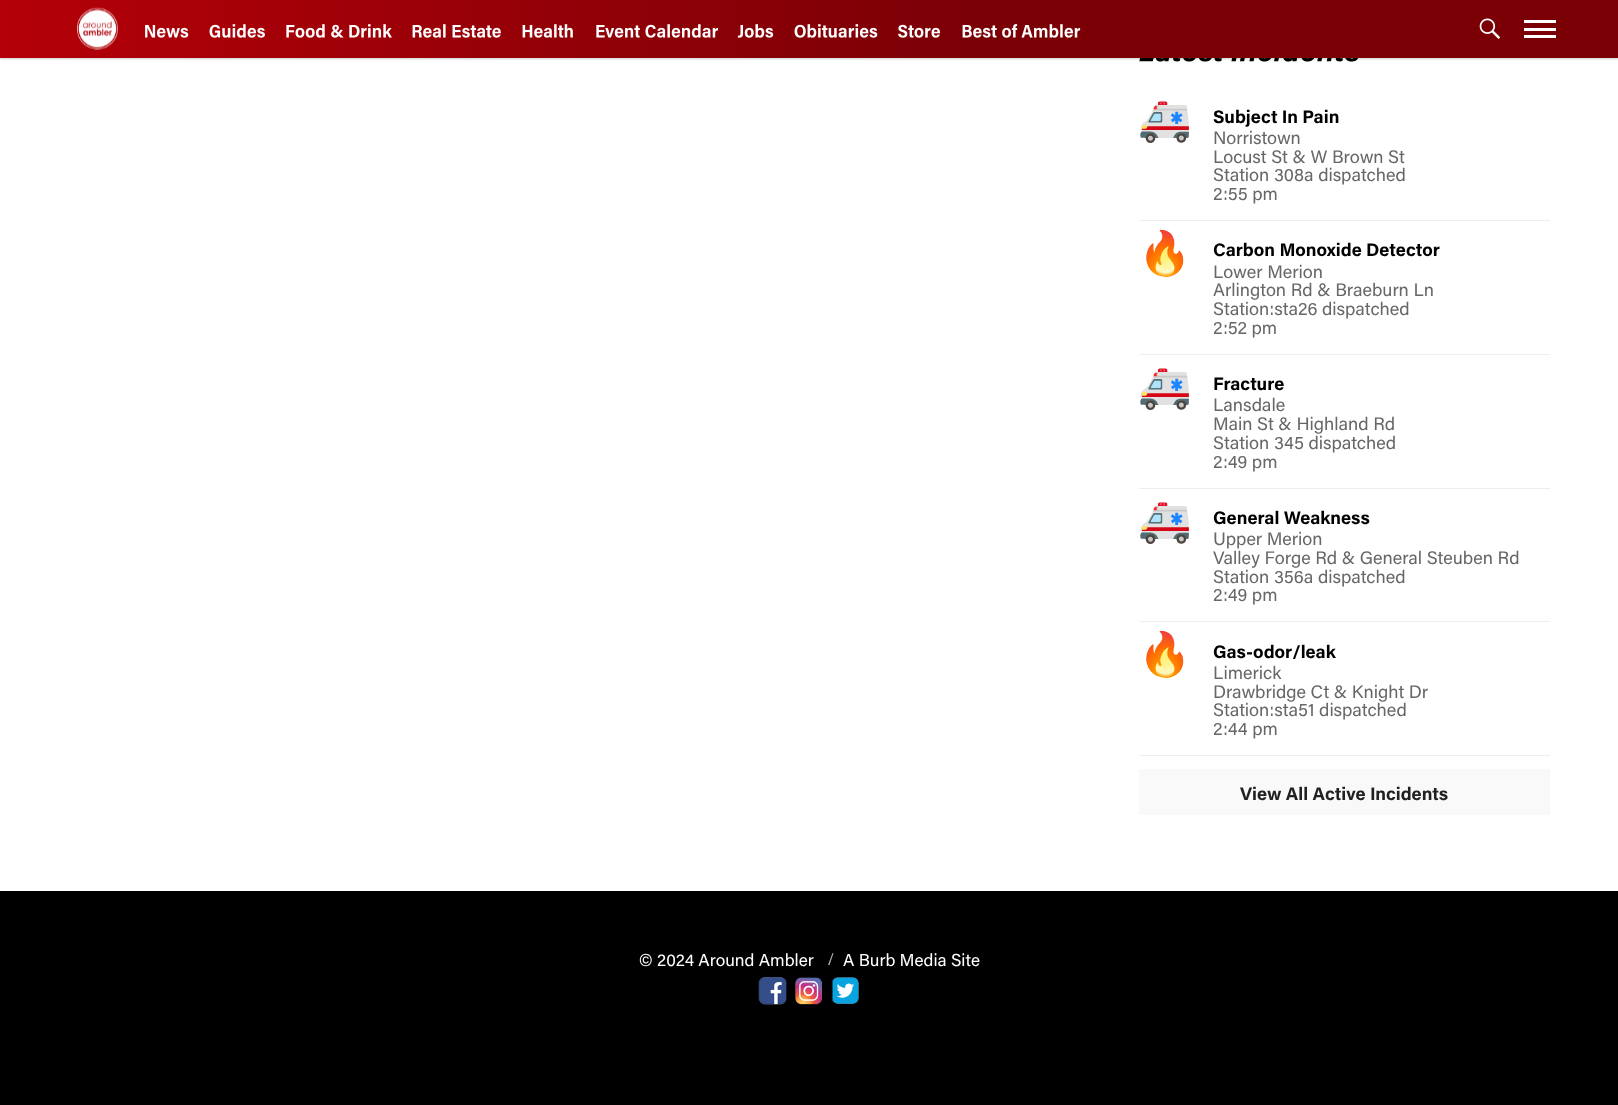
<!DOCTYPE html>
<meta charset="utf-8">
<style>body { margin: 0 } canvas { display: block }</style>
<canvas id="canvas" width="1618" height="1105"></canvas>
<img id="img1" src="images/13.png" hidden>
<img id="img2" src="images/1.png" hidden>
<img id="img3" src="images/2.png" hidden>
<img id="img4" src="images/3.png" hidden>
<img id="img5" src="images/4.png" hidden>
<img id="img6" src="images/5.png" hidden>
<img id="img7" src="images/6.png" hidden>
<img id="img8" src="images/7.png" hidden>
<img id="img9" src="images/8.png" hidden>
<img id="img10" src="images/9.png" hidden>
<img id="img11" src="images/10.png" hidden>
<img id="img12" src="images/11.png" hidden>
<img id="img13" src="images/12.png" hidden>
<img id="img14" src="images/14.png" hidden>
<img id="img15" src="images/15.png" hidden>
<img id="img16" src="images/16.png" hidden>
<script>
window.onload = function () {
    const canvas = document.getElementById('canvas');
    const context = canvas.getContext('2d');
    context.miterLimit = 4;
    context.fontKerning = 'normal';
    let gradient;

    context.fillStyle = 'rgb(255, 255, 255)';
    context.fillRect(0, 0, 1618, 1105);
    context.drawImage(document.getElementById('img1'), 1139, 58, 219, 4);
    context.fillStyle = 'rgba(0, 0, 0, 0.2)';
    context.filter = 'blur(1px)';
    context.beginPath();
    context.rect(0, 1, 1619, 58);
    context.fill();
    context.filter = 'none';
    gradient = context.createLinearGradient(0, 29, 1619, 29);
    gradient.addColorStop(0, 'rgb(180, 0, 8)');
    gradient.addColorStop(0.6, 'rgb(123, 0, 6)');
    context.fillStyle = gradient;
    context.fillRect(0, 0, 1618, 58);
    context.drawImage(document.getElementById('img2'), 77, 7, 41, 43);
    context.drawImage(document.getElementById('img3'), 145, 25, 44, 13);
    context.drawImage(document.getElementById('img4'), 209, 24, 56, 14);
    context.drawImage(document.getElementById('img5'), 286, 24, 106, 14);
    context.drawImage(document.getElementById('img6'), 412, 24, 89, 14);
    context.drawImage(document.getElementById('img7'), 522, 24, 51, 14);
    context.drawImage(document.getElementById('img8'), 596, 24, 123, 14);
    context.drawImage(document.getElementById('img9'), 737, 24, 37, 14);
    context.drawImage(document.getElementById('img10'), 794, 24, 84, 14);
    context.drawImage(document.getElementById('img11'), 898, 24, 42, 14);
    context.drawImage(document.getElementById('img12'), 962, 24, 119, 14);
    context.drawImage(document.getElementById('img13'), 1479, 18, 22, 21);
    context.fillStyle = 'rgb(255, 255, 255)';
    context.fillRect(1524, 20, 32, 3);
    context.fillRect(1524, 28, 32, 3);
    context.fillRect(1524, 35, 32, 3);
    context.fillStyle = 'rgb(238, 238, 238)';
    context.fillRect(1139, 220, 411, 1);
    context.fillRect(1139, 354, 411, 1);
    context.fillRect(1139, 488, 411, 1);
    context.fillRect(1139, 621, 411, 1);
    context.fillRect(1139, 755, 411, 1);
    context.fillStyle = 'rgb(249, 249, 249)';
    context.fillRect(1139, 769, 411, 46);
    context.fillStyle = 'rgb(0, 0, 0)';
    context.fillRect(0, 891, 1618, 214);
    context.fillStyle = 'rgb(179, 179, 179)';
    context.beginPath();
    context.moveTo(828, 965);
    context.lineTo(832.5, 953);
    context.lineTo(833.5, 953);
    context.lineTo(829.5, 965);
    context.closePath();
    context.fill();
    context.drawImage(document.getElementById('img14'), 758, 977, 29, 28);
    context.drawImage(document.getElementById('img15'), 795, 977, 27, 28);
    context.drawImage(document.getElementById('img16'), 832, 977, 27, 27);
    context.save();
    context.beginPath();
    context.rect(1139, 88, 411, 132);
    context.clip();
    context.font = '43px Noto Color Emoji';
    context.fillStyle = 'rgb(0, 122, 204)';
    context.fillText('🚑', 1138, 134);
    context.restore();
    context.font = 'bold 18.1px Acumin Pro';
    context.fillStyle = 'rgb(0, 0, 0)';
    context.fillText('Subject In Pain', 1213, 123);
    context.font = '18.1px Acumin Pro';
    context.fillStyle = 'rgb(103, 103, 103)';
    context.fillText('Norristown', 1213, 144);
    context.fillText('Locust St & W Brown St', 1213, 163);
    context.fillText('Station 308a dispatched', 1213, 181);
    context.fillText('2:55 pm', 1213, 200);
    context.save();
    context.beginPath();
    context.rect(1139, 221, 411, 133);
    context.clip();
    context.font = '43px Noto Color Emoji';
    context.fillStyle = 'rgb(0, 122, 204)';
    context.fillText('🔥', 1138, 268);
    context.restore();
    context.font = 'bold 18.1px Acumin Pro';
    context.fillStyle = 'rgb(0, 0, 0)';
    context.fillText('Carbon Monoxide Detector', 1213, 256);
    context.font = '18.1px Acumin Pro';
    context.fillStyle = 'rgb(103, 103, 103)';
    context.fillText('Lower Merion', 1213, 278);
    context.fillText('Arlington Rd & Braeburn Ln', 1213, 296);
    context.fillText('Station:sta26 dispatched', 1213, 315);
    context.fillText('2:52 pm', 1213, 334);
    context.save();
    context.beginPath();
    context.rect(1139, 355, 411, 133);
    context.clip();
    context.font = '43px Noto Color Emoji';
    context.fillStyle = 'rgb(0, 122, 204)';
    context.fillText('🚑', 1138, 401);
    context.restore();
    context.font = 'bold 18.1px Acumin Pro';
    context.fillStyle = 'rgb(0, 0, 0)';
    context.fillText('Fracture', 1213, 390);
    context.font = '18.1px Acumin Pro';
    context.fillStyle = 'rgb(103, 103, 103)';
    context.fillText('Lansdale', 1213, 411);
    context.fillText('Main St & Highland Rd', 1213, 430);
    context.fillText('Station 345 dispatched', 1213, 449);
    context.fillText('2:49 pm', 1213, 468);
    context.save();
    context.beginPath();
    context.rect(1139, 489, 411, 132);
    context.clip();
    context.font = '43px Noto Color Emoji';
    context.fillStyle = 'rgb(0, 122, 204)';
    context.fillText('🚑', 1138, 535);
    context.restore();
    context.font = 'bold 18.1px Acumin Pro';
    context.fillStyle = 'rgb(0, 0, 0)';
    context.fillText('General Weakness', 1213, 524);
    context.font = '18.1px Acumin Pro';
    context.fillStyle = 'rgb(103, 103, 103)';
    context.fillText('Upper Merion', 1213, 545);
    context.fillText('Valley Forge Rd & General Steuben Rd', 1213, 564);
    context.fillText('Station 356a dispatched', 1213, 583);
    context.fillText('2:49 pm', 1213, 601);
    context.save();
    context.beginPath();
    context.rect(1139, 623, 411, 132);
    context.clip();
    context.font = '43px Noto Color Emoji';
    context.fillStyle = 'rgb(0, 122, 204)';
    context.fillText('🔥', 1138, 669);
    context.restore();
    context.font = 'bold 18.1px Acumin Pro';
    context.fillStyle = 'rgb(0, 0, 0)';
    context.fillText('Gas-odor/leak', 1213, 658);
    context.font = '18.1px Acumin Pro';
    context.fillStyle = 'rgb(103, 103, 103)';
    context.fillText('Limerick', 1213, 679);
    context.fillText('Drawbridge Ct & Knight Dr', 1213, 698);
    context.fillText('Station:sta51 dispatched', 1213, 716);
    context.fillText('2:44 pm', 1213, 735);
    context.font = 'bold 18.1px Acumin Pro';
    context.fillStyle = 'rgb(33, 33, 33)';
    context.fillText('View All Active Incidents', 1240, 800);
    context.font = '17.25px Acumin Pro';
    context.fillStyle = 'rgb(255, 255, 255)';
    context.fillText('© 2024 Around Ambler', 639, 966);
    context.fillText('A Burb Media Site', 843, 966);
};
</script>
